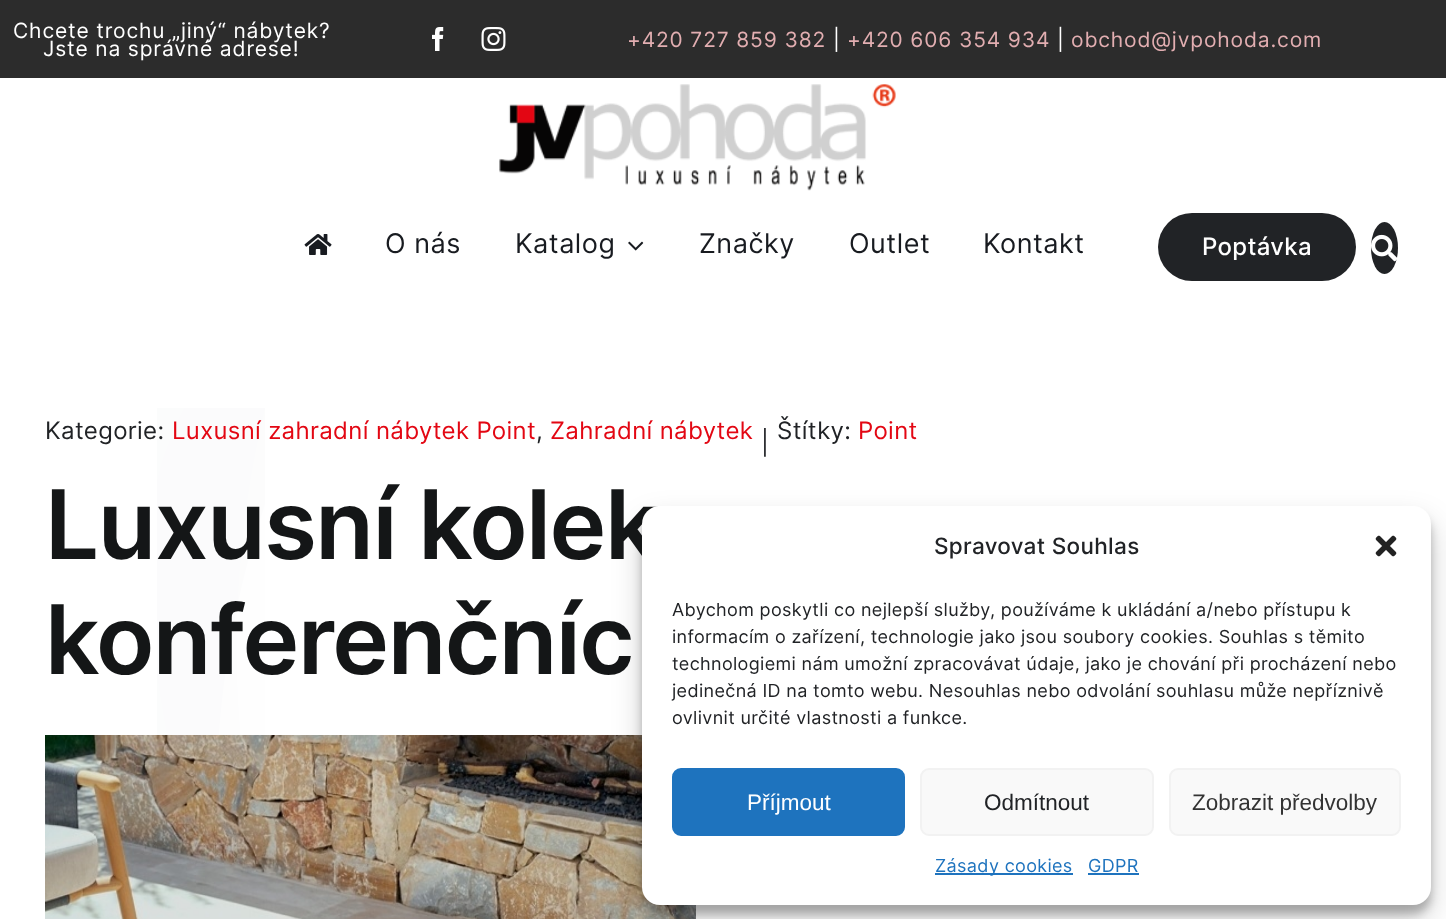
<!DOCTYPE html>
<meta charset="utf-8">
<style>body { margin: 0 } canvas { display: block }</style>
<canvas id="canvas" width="1446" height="919"></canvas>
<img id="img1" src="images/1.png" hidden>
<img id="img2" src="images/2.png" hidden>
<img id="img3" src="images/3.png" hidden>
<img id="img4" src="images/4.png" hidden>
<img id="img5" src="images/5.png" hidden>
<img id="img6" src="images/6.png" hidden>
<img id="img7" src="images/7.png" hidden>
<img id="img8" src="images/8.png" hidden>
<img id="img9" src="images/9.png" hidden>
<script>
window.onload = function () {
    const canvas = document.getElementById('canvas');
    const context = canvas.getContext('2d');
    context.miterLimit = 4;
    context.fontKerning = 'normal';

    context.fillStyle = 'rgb(255, 255, 255)';
    context.fillRect(0, 0, 1446, 919);
    context.fillStyle = 'rgb(44, 44, 44)';
    context.fillRect(0, 0, 1446, 78);
    context.drawImage(document.getElementById('img1'), 432, 27, 12, 24);
    context.drawImage(document.getElementById('img2'), 481, 27, 25, 24);
    context.drawImage(document.getElementById('img3'), 499, 84, 397, 107);
    context.drawImage(document.getElementById('img4'), 304, 234, 28, 21);
    context.drawImage(document.getElementById('img5'), 628, 241, 16, 10);
    context.fillStyle = 'rgb(33, 35, 38)';
    context.beginPath();
    context.roundRect(1158, 213, 198, 68, 34);
    context.fill();
    context.beginPath();
    context.ellipse(1384.5, 248, 13.5, 26, 0, 0, 2 * Math.PI);
    context.fill();
    context.drawImage(document.getElementById('img6'), 1371, 234, 26, 28);
    context.drawImage(document.getElementById('img7'), 157, 408, 108, 327);
    context.drawImage(document.getElementById('img8'), 45, 735, 651, 184);
    context.fillStyle = 'rgba(0, 0, 0, 0.23)';
    context.filter = 'blur(4.5px)';
    context.beginPath();
    context.roundRect(642, 515, 789, 399, 18);
    context.fill();
    context.filter = 'none';
    context.fillStyle = 'rgba(0, 0, 0, 0.19)';
    context.filter = 'blur(15px)';
    context.beginPath();
    context.roundRect(642, 521, 789, 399, 18);
    context.fill();
    context.filter = 'none';
    context.letterSpacing = '0.85px';
    context.font = '21px Inter';
    context.fillStyle = 'rgb(255, 255, 255)';
    context.fillText('Chcete trochu „jiný“ nábytek?', 13, 38);
    context.fillText('Jste na správné adrese!', 43, 56);
    context.fillStyle = 'rgb(226, 174, 177)';
    context.fillText('+420 727 859 382', 627, 47);
    context.fillStyle = 'rgb(255, 255, 255)';
    context.fillText('|', 833, 47);
    context.fillStyle = 'rgb(226, 174, 177)';
    context.fillText('+420 606 354 934', 847, 47);
    context.fillStyle = 'rgb(255, 255, 255)';
    context.fillText('|', 1057, 47);
    context.fillStyle = 'rgb(226, 174, 177)';
    context.fillText('obchod@jvpohoda.com', 1071, 47);
    context.letterSpacing = '0.5px';
    context.font = '27px Inter';
    context.fillStyle = 'rgb(24, 27, 32)';
    context.fillText('O nás', 385, 253);
    context.fillText('Katalog', 515, 253);
    context.fillText('Značky', 699, 253);
    context.fillText('Outlet', 849, 253);
    context.fillText('Kontakt', 983, 253);
    context.letterSpacing = '0.35px';
    context.font = '500 24px Inter';
    context.fillStyle = 'rgb(255, 255, 255)';
    context.fillText('Poptávka', 1202, 255);
    context.font = '24px Inter';
    context.fillStyle = 'rgb(33, 35, 38)';
    context.fillText('Kategorie:', 45, 439);
    context.fillStyle = 'rgb(227, 7, 19)';
    context.fillText('Luxusní zahradní nábytek Point', 172, 439);
    context.fillStyle = 'rgb(33, 35, 38)';
    context.fillText(',', 536, 439);
    context.fillStyle = 'rgb(227, 7, 19)';
    context.fillText('Zahradní nábytek', 550, 439);
    context.fillStyle = 'rgb(33, 35, 38)';
    context.fillText('|', 761, 451);
    context.fillText('Štítky:', 777, 439);
    context.fillStyle = 'rgb(227, 7, 19)';
    context.fillText('Point', 858, 439);
    context.letterSpacing = '-1.5px';
    context.font = '600 96px Inter';
    context.fillStyle = 'rgb(20, 22, 23)';
    context.fillText('Luxusní kolek', 45, 559);
    context.fillText('konferenčníc', 45, 674);
    context.fillStyle = 'rgb(255, 255, 255)';
    context.beginPath();
    context.roundRect(642, 506, 789, 399, 18);
    context.fill();
    context.letterSpacing = '0.35px';
    context.font = '500 22.5px Inter';
    context.fillStyle = 'rgb(33, 35, 38)';
    context.fillText('Spravovat Souhlas', 934, 554);
    context.drawImage(document.getElementById('img9'), 1375, 535, 22, 22);
    context.font = '18px Inter';
    context.fillText('Abychom poskytli co nejlepší služby, používáme k ukládání a/nebo přístupu k', 672, 616);
    context.fillText('informacím o zařízení, technologie jako jsou soubory cookies. Souhlas s těmito', 672, 643);
    context.fillText('technologiemi nám umožní zpracovávat údaje, jako je chování při procházení nebo', 672, 670);
    context.fillText('jedinečná ID na tomto webu. Nesouhlas nebo odvolání souhlasu může nepříznivě', 672, 697);
    context.fillText('ovlivnit určité vlastnosti a funkce.', 672, 724);
    context.fillStyle = 'rgb(30, 115, 190)';
    context.beginPath();
    context.roundRect(673, 769, 231, 66, 8);
    context.fill();
    context.strokeStyle = 'rgb(30, 115, 190)';
    context.lineWidth = 2;
    context.stroke();
    context.letterSpacing = '0px';
    context.font = '22.5px Liberation Sans';
    context.fillStyle = 'rgb(255, 255, 255)';
    context.fillText('Příjmout', 747, 810);
    context.fillStyle = 'rgb(249, 249, 249)';
    context.beginPath();
    context.roundRect(921, 769, 232, 66, 8);
    context.fill();
    context.strokeStyle = 'rgb(242, 242, 242)';
    context.stroke();
    context.fillStyle = 'rgb(33, 35, 38)';
    context.fillText('Odmítnout', 984, 810);
    context.fillStyle = 'rgb(249, 249, 249)';
    context.beginPath();
    context.roundRect(1170, 769, 230, 66, 8);
    context.fill();
    context.stroke();
    context.fillStyle = 'rgb(51, 51, 51)';
    context.fillText('Zobrazit předvolby', 1192, 810);
    context.fillStyle = 'rgb(30, 115, 190)';
    context.fillRect(935, 873, 138, 2);
    context.letterSpacing = '0.35px';
    context.font = '18px Inter';
    context.fillText('Zásady cookies', 935, 872);
    context.fillText('GDPR', 1088, 872);
    context.fillRect(1088, 873, 51, 2);
};
</script>
